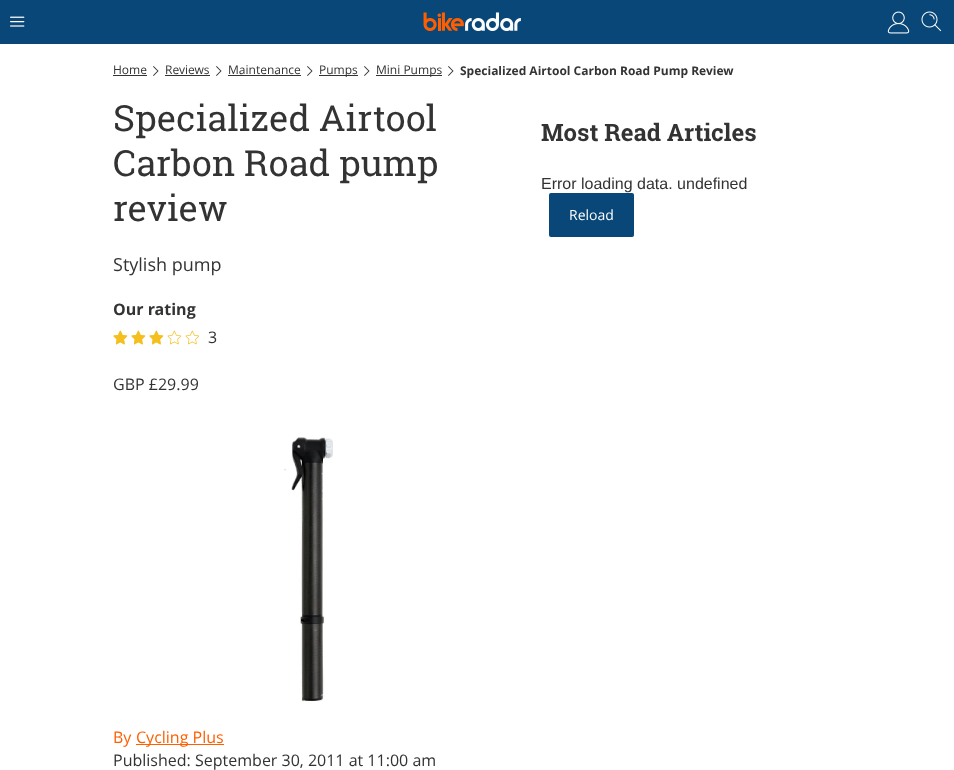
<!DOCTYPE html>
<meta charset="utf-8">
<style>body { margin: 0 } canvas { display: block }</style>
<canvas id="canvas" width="954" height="770"></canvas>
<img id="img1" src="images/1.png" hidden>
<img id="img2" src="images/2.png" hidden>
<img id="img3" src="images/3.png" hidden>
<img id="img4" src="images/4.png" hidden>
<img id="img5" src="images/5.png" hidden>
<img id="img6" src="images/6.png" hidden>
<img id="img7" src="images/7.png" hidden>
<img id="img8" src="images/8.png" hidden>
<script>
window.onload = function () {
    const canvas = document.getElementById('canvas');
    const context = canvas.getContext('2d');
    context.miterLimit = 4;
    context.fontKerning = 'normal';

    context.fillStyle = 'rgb(255, 255, 255)';
    context.fillRect(0, 0, 954, 770);
    context.fillStyle = 'rgb(8, 71, 119)';
    context.fillRect(0, 0, 954, 44);
    context.drawImage(document.getElementById('img1'), 10, 16, 15, 11);
    context.drawImage(document.getElementById('img2'), 423, 12, 98, 20);
    context.drawImage(document.getElementById('img3'), 887, 11, 23, 23);
    context.drawImage(document.getElementById('img4'), 921, 11, 21, 21);
    context.fillStyle = 'rgb(51, 51, 51)';
    context.fillRect(113, 75, 34, 1);
    context.drawImage(document.getElementById('img5'), 153, 66, 6, 10);
    context.fillRect(165, 75, 45, 1);
    context.drawImage(document.getElementById('img5'), 216, 66, 6, 10);
    context.fillRect(228, 75, 73, 1);
    context.drawImage(document.getElementById('img5'), 307, 66, 6, 10);
    context.fillRect(319, 75, 39, 1);
    context.drawImage(document.getElementById('img5'), 364, 66, 6, 10);
    context.fillRect(376, 75, 66, 1);
    context.drawImage(document.getElementById('img5'), 448, 66, 6, 10);
    context.drawImage(document.getElementById('img6'), 113, 330, 15, 15);
    context.drawImage(document.getElementById('img6'), 131, 330, 15, 15);
    context.drawImage(document.getElementById('img6'), 149, 330, 15, 15);
    context.drawImage(document.getElementById('img7'), 167, 330, 15, 15);
    context.drawImage(document.getElementById('img7'), 185, 330, 15, 15);
    context.drawImage(document.getElementById('img8'), 284, 437, 49, 265);
    context.fillStyle = 'rgb(255, 95, 0)';
    context.fillRect(136, 744, 88, 1);
    context.fillStyle = 'rgb(8, 71, 119)';
    context.beginPath();
    context.roundRect(549, 193, 85, 44, 2);
    context.fill();
    context.font = '12px Open Sans';
    context.fillStyle = 'rgb(51, 51, 51)';
    context.fillText('Home', 113, 74);
    context.fillText('Reviews', 165, 74);
    context.fillText('Maintenance', 228, 74);
    context.fillText('Pumps', 319, 74);
    context.fillText('Mini Pumps', 376, 74);
    context.font = 'bold 12px Open Sans';
    context.fillText('Specialized Airtool Carbon Road Pump Review', 460, 75);
    context.font = '36px Roboto Slab';
    context.fillText('Specialized Airtool', 113, 131);
    context.fillText('Carbon Road pump', 113, 176);
    context.fillText('review', 113, 221);
    context.font = '18px Open Sans';
    context.fillText('Stylish pump', 113, 271);
    context.font = 'bold 16px Open Sans';
    context.fillText('Our rating', 113, 315);
    context.font = '16px Open Sans';
    context.fillText('3', 208, 343);
    context.fillText('GBP £29.99', 113, 390);
    context.fillStyle = 'rgb(255, 95, 0)';
    context.fillText('By', 113, 743);
    context.fillText('Cycling Plus', 136, 743);
    context.fillStyle = 'rgb(51, 51, 51)';
    context.fillText('Published: September 30, 2011 at 11:00 am', 113, 766);
    context.font = 'bold 24px Roboto Slab';
    context.fillText('Most Read Articles', 541, 141);
    context.font = '16px Liberation Sans';
    context.fillText('Error loading data. undefined', 541, 189);
    context.font = '14px Open Sans';
    context.fillStyle = 'rgb(255, 255, 255)';
    context.fillText('Reload', 569, 220);
};
</script>
